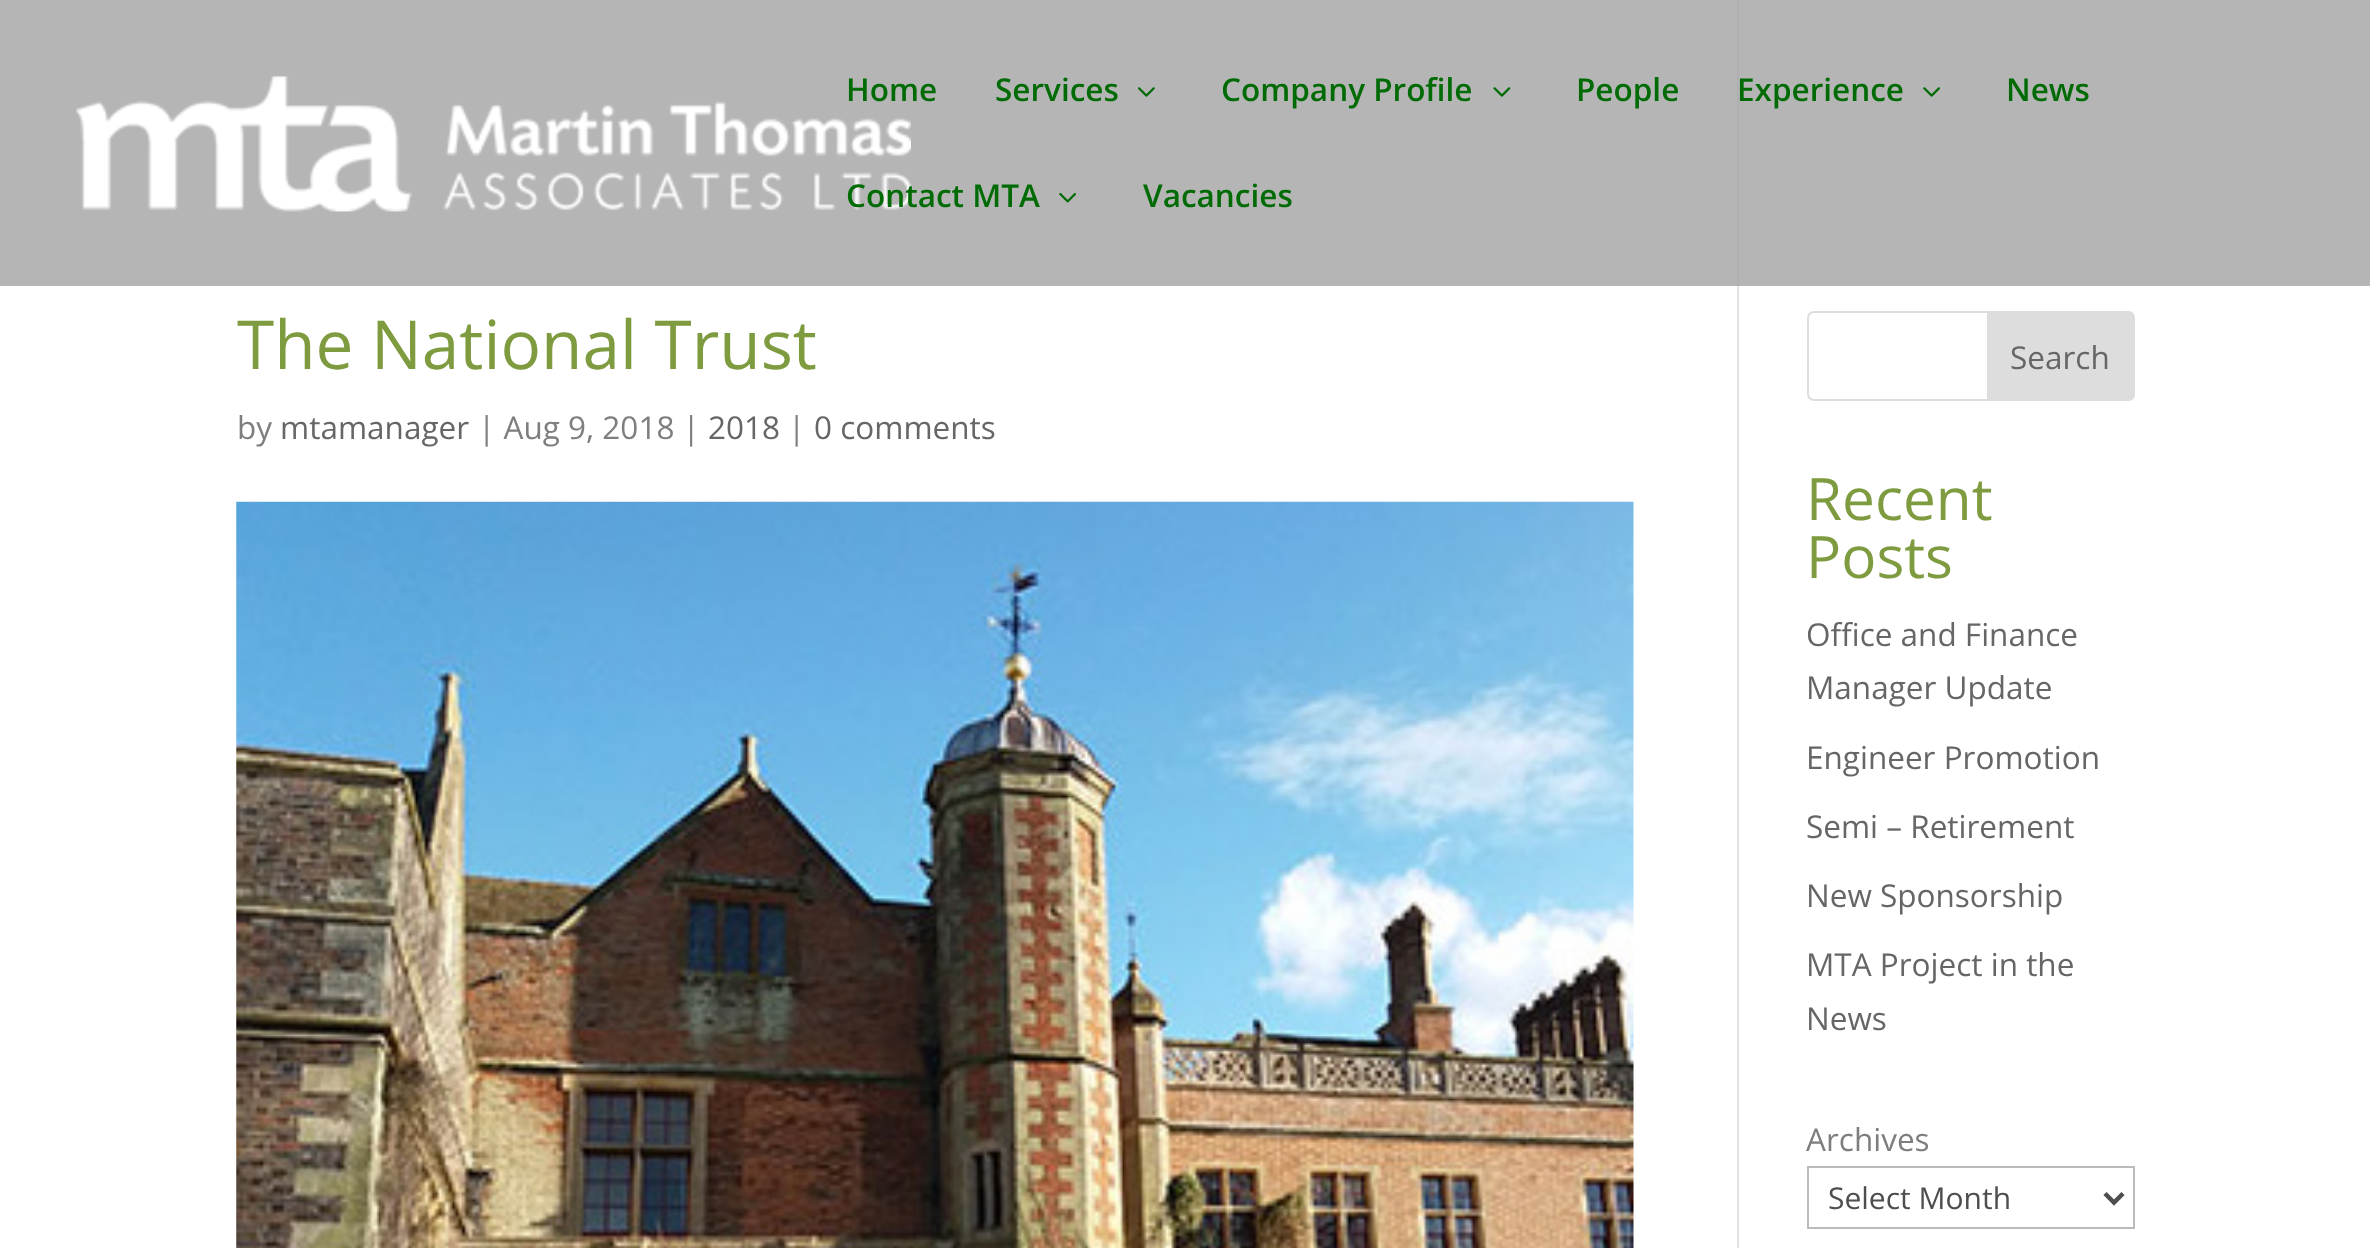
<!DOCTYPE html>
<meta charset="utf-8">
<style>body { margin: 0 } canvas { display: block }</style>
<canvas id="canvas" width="2370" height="1248"></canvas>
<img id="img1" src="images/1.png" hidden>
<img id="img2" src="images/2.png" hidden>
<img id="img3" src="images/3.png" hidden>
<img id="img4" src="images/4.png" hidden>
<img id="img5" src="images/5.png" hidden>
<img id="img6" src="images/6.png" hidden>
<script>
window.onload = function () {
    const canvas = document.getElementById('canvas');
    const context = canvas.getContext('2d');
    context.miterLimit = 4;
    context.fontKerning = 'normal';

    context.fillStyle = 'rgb(255, 255, 255)';
    context.fillRect(0, 0, 2370, 1248);
    context.fillStyle = 'rgb(181, 181, 181)';
    context.fillRect(0, 0, 2370, 286);
    context.drawImage(document.getElementById('img1'), 76, 76, 835, 136);
    context.drawImage(document.getElementById('img2'), 1138, 87, 17, 10);
    context.drawImage(document.getElementById('img3'), 1493, 87, 18, 10);
    context.drawImage(document.getElementById('img4'), 1923, 87, 17, 10);
    context.drawImage(document.getElementById('img5'), 1059, 193, 17, 10);
    context.fillStyle = 'rgb(226, 226, 226)';
    context.fillRect(1737, 286, 2, 962);
    context.fillStyle = 'rgb(176, 176, 176)';
    context.fillRect(1737, 0, 2, 286);
    context.drawImage(document.getElementById('img6'), 236, 501, 1398, 747);
    context.beginPath();
    context.roundRect(1808, 312, 326, 88, 6);
    context.strokeStyle = 'rgb(221, 221, 221)';
    context.lineWidth = 2;
    context.stroke();
    context.fillStyle = 'rgb(221, 221, 221)';
    context.beginPath();
    context.roundRect(1988, 312, 146, 88, [0, 6, 6, 0]);
    context.fill();
    context.stroke();
    context.strokeStyle = 'rgb(187, 187, 187)';
    context.strokeRect(1808, 1167, 326, 61);
    context.beginPath();
    context.moveTo(2105, 1193.5);
    context.lineTo(2114, 1202.5);
    context.lineTo(2123, 1193.5);
    context.strokeStyle = 'rgb(78, 78, 78)';
    context.lineWidth = 4.5;
    context.stroke();
    context.font = '600 31.5px Open Sans';
    context.fillStyle = 'rgb(0, 107, 5)';
    context.fillText('Home', 846, 101);
    context.fillText('Services', 995, 101);
    context.fillText('Company Profile', 1221, 101);
    context.fillText('People', 1576, 101);
    context.fillText('Experience', 1737, 101);
    context.fillText('News', 2006, 101);
    context.fillText('Contact MTA', 846, 207);
    context.fillText('Vacancies', 1143, 207);
    context.font = '67.5px Open Sans';
    context.fillStyle = 'rgb(126, 155, 63)';
    context.fillText('The National Trust', 237, 369);
    context.font = '31.5px Open Sans';
    context.fillStyle = 'rgb(126, 126, 126)';
    context.fillText('by', 237, 439);
    context.fillStyle = 'rgb(102, 102, 102)';
    context.fillText('mtamanager', 280, 439);
    context.fillStyle = 'rgb(126, 126, 126)';
    context.fillText('| Aug 9, 2018 |', 478, 439);
    context.fillStyle = 'rgb(102, 102, 102)';
    context.fillText('2018', 708, 439);
    context.fillStyle = 'rgb(126, 126, 126)';
    context.fillText('|', 788, 439);
    context.fillStyle = 'rgb(102, 102, 102)';
    context.fillText('0 comments', 814, 439);
    context.fillText('Search', 2010, 369);
    context.font = '58.5px Open Sans';
    context.fillStyle = 'rgb(126, 155, 63)';
    context.fillText('Recent', 1806, 520);
    context.fillText('Posts', 1806, 578);
    context.font = '31.5px Open Sans';
    context.fillStyle = 'rgb(102, 102, 102)';
    context.fillText('Office and Finance', 1806, 646);
    context.fillText('Manager Update', 1806, 699);
    context.fillText('Engineer Promotion', 1806, 769);
    context.fillText('Semi – Retirement', 1806, 838);
    context.fillText('New Sponsorship', 1806, 907);
    context.fillText('MTA Project in the', 1806, 976);
    context.fillText('News', 1806, 1030);
    context.fillStyle = 'rgb(126, 126, 126)';
    context.fillText('Archives', 1806, 1151);
    context.font = '30px Open Sans';
    context.fillStyle = 'rgb(78, 78, 78)';
    context.fillText('Select Month', 1828, 1209);
};
</script>
